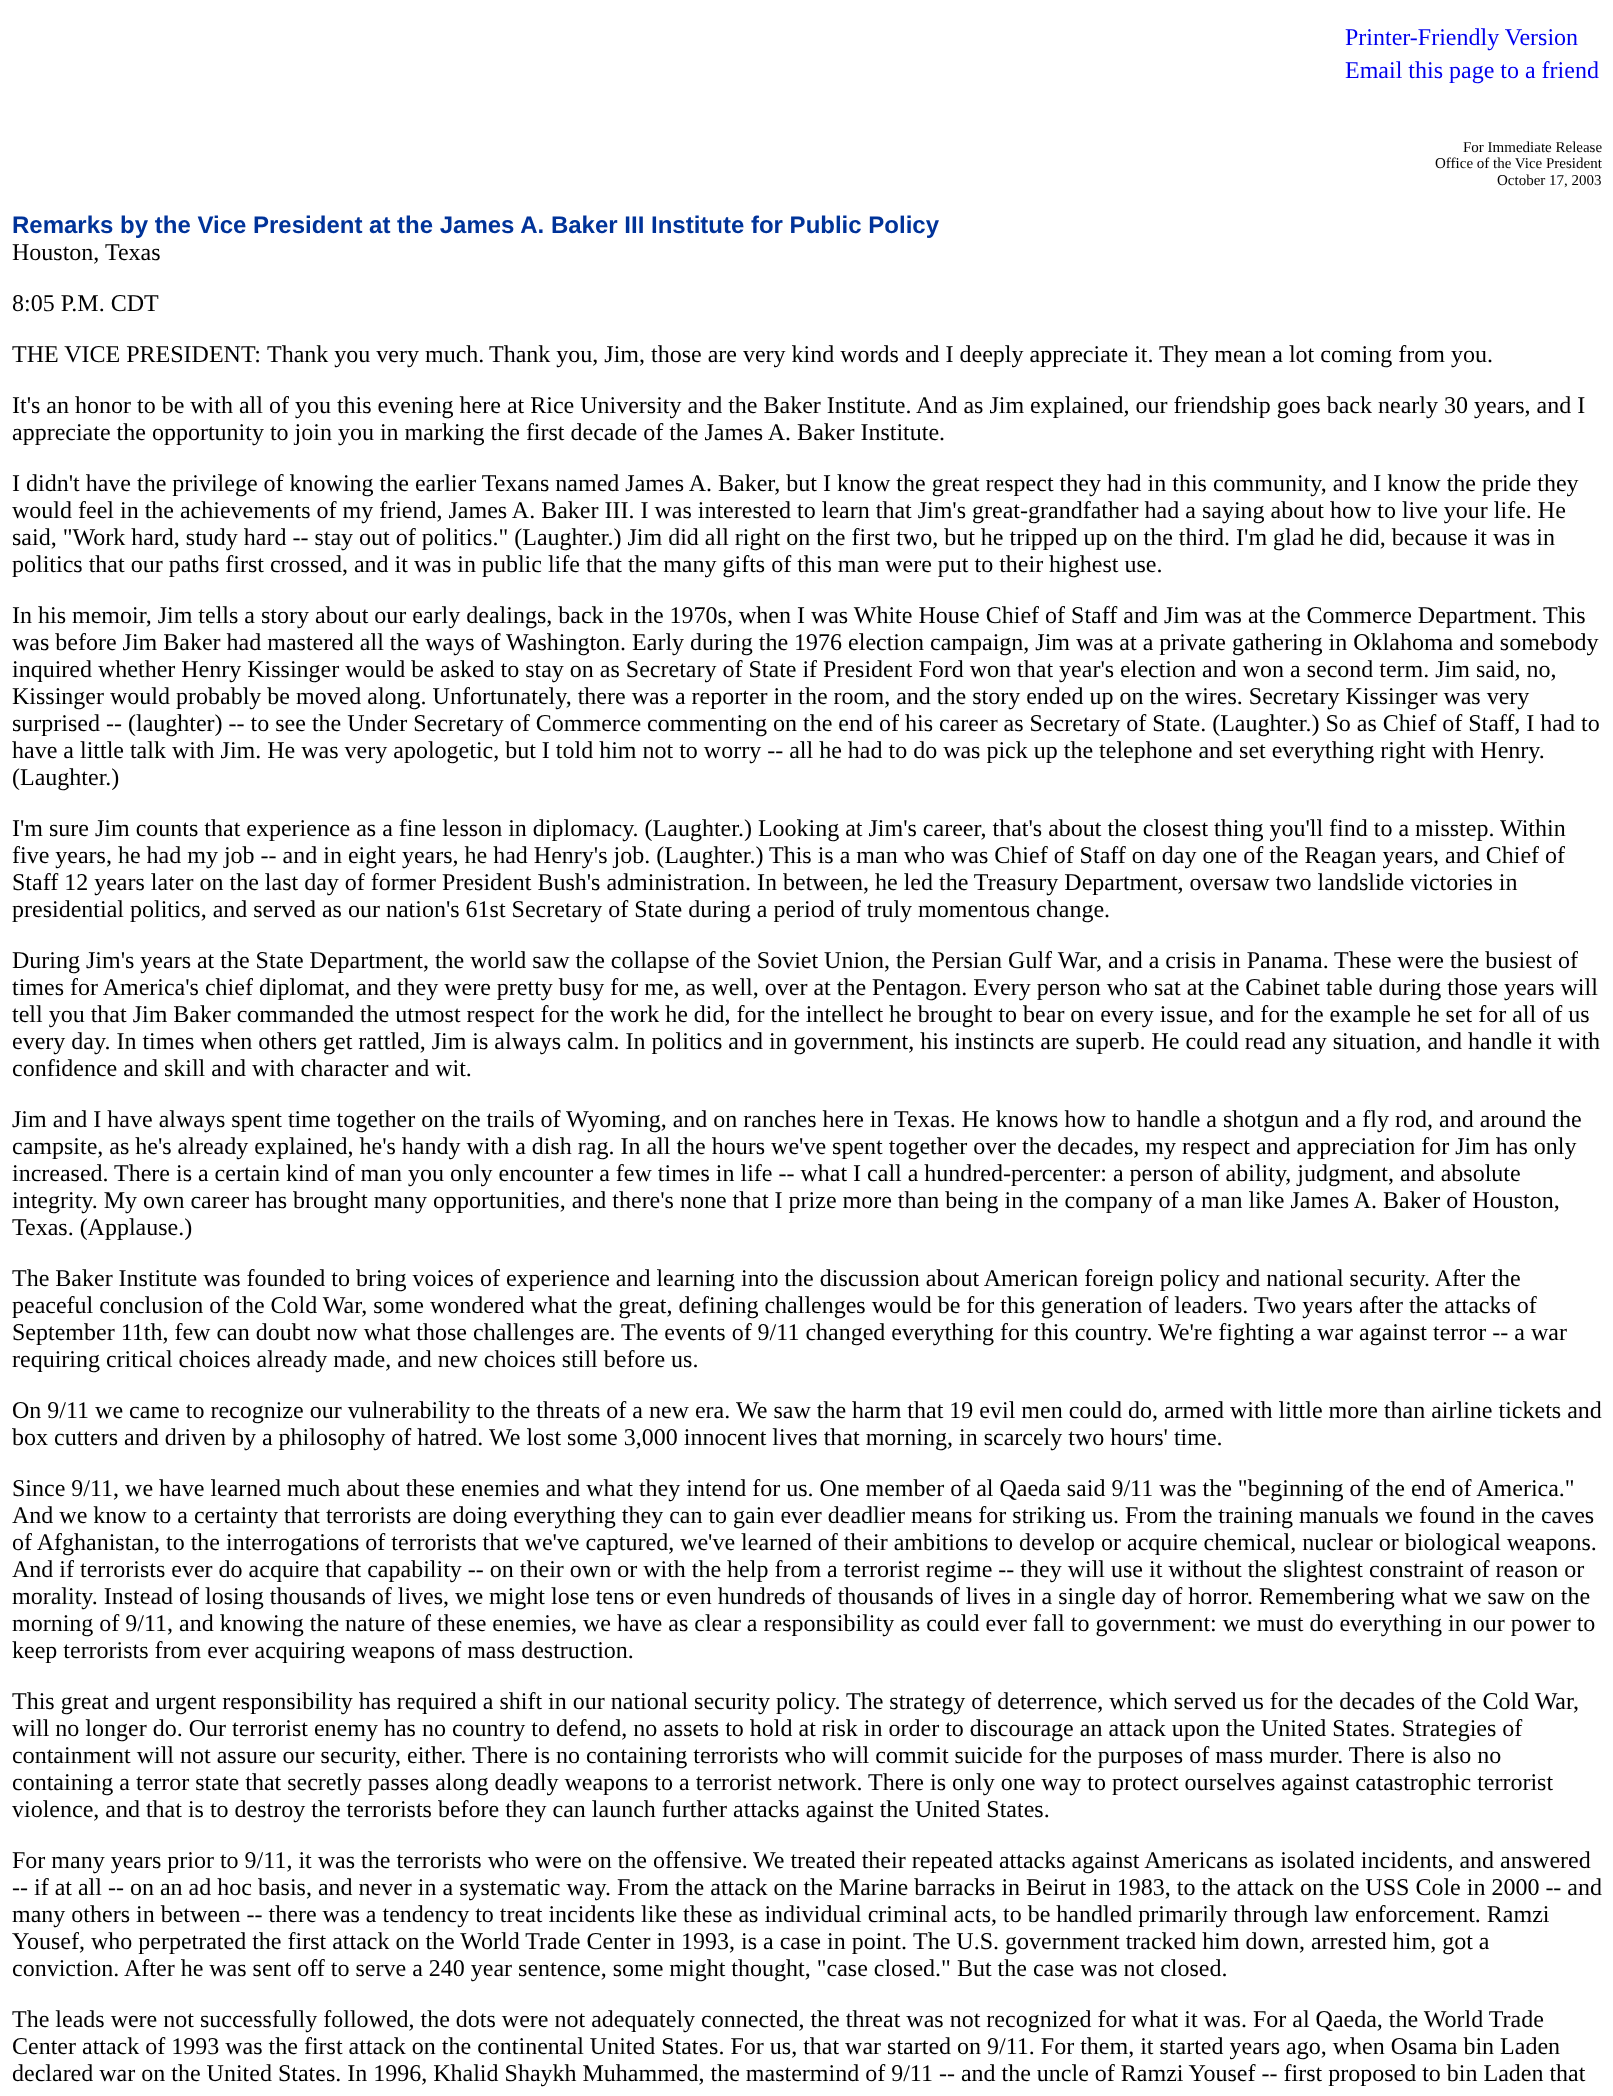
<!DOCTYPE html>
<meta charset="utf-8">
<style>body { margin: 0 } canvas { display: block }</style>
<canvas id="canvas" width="1613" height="2096"></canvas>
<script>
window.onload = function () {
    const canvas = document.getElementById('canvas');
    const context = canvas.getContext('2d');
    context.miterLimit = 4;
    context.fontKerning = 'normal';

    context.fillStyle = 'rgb(255, 255, 255)';
    context.fillRect(0, 0, 1613, 2096);
    context.font = '24px Liberation Serif';
    context.fillStyle = 'rgb(0, 0, 238)';
    context.fillText('Printer-Friendly Version', 1345, 45);
    context.fillText('Email this page to a friend', 1345, 78);
    context.font = '15px Liberation Serif';
    context.fillStyle = 'rgb(0, 0, 0)';
    context.fillText('For Immediate Release', 1463, 152);
    context.fillText('Office of the Vice President', 1435, 168);
    context.fillText('October 17, 2003', 1497, 185);
    context.font = 'bold 24px Liberation Sans';
    context.fillStyle = 'rgb(0, 51, 153)';
    context.fillText('Remarks by the Vice President at the James A. Baker III Institute for Public Policy', 12, 233);
    context.font = '24px Liberation Serif';
    context.fillStyle = 'rgb(0, 0, 0)';
    context.fillText('Houston, Texas', 12, 260);
    context.fillText('8:05 P.M. CDT', 12, 311);
    context.fillText('THE VICE PRESIDENT:', 12, 362);
    context.fillText('Thank you very much.', 267, 362);
    context.fillText('Thank you, Jim, those are very kind words and I deeply appreciate it.', 489, 362);
    context.fillText('They mean a lot coming from you.', 1159, 362);
    context.fillText('It\'s an honor to be with all of you this evening here at Rice University and the Baker Institute. And as Jim explained, our friendship goes back nearly 30 years, and I', 12, 413);
    context.fillText('appreciate the opportunity to join you in marking the first decade of the James A. Baker Institute.', 12, 440);
    context.fillText('I didn\'t have the privilege of knowing the earlier Texans named James A. Baker, but I know the great respect they had in this community, and I know the pride they', 12, 491);
    context.fillText('would feel in the achievements of my friend, James A. Baker III. I was interested to learn that Jim\'s great-grandfather had a saying about how to live your life. He', 12, 518);
    context.fillText('said, "Work hard, study hard -- stay out of politics." (Laughter.) Jim did all right on the first two, but he tripped up on the third. I\'m glad he did, because it was in', 12, 545);
    context.fillText('politics that our paths first crossed, and it was in public life that the many gifts of this man were put to their highest use.', 12, 572);
    context.fillText('In his memoir, Jim tells a story about our early dealings, back in the 1970s, when I was White House Chief of Staff and Jim was at the Commerce Department.', 12, 623);
    context.fillText('This', 1543, 623);
    context.fillText('was before Jim Baker had mastered all the ways of Washington. Early during the 1976 election campaign, Jim was at a private gathering in Oklahoma and somebody', 12, 650);
    context.fillText('inquired whether Henry Kissinger would be asked to stay on as Secretary of State if President Ford won that year\'s election and won a second term. Jim said, no,', 12, 677);
    context.fillText('Kissinger would probably be moved along. Unfortunately, there was a reporter in the room, and the story ended up on the wires. Secretary Kissinger was very', 12, 704);
    context.fillText('surprised -- (laughter) -- to see the Under Secretary of Commerce commenting on the end of his career as Secretary of State. (Laughter.) So as Chief of Staff, I had to', 12, 731);
    context.fillText('have a little talk with Jim. He was very apologetic, but I told him not to worry -- all he had to do was pick up the telephone and set everything right with Henry.', 12, 758);
    context.fillText('(Laughter.)', 12, 785);
    context.fillText('I\'m sure Jim counts that experience as a fine lesson in diplomacy. (Laughter.) Looking at Jim\'s career, that\'s about the closest thing you\'ll find to a misstep.', 12, 836);
    context.fillText('Within', 1500, 836);
    context.fillText('five years, he had my job -- and in eight years, he had Henry\'s job. (Laughter.)', 12, 863);
    context.fillText('This is a man who was Chief of Staff on day one of the Reagan years, and Chief of', 769, 863);
    context.fillText('Staff 12 years later on the last day of former President Bush\'s administration. In between, he led the Treasury Department, oversaw two landslide victories in', 12, 890);
    context.fillText('presidential politics, and served as our nation\'s 61st Secretary of State during a period of truly momentous change.', 12, 917);
    context.fillText('During Jim\'s years at the State Department, the world saw the collapse of the Soviet Union, the Persian Gulf War, and a crisis in Panama.', 12, 968);
    context.fillText('These were the busiest of', 1334, 968);
    context.fillText('times for America\'s chief diplomat, and they were pretty busy for me, as well, over at the Pentagon. Every person who sat at the Cabinet table during those years will', 12, 995);
    context.fillText('tell you that Jim Baker commanded the utmost respect for the work he did, for the intellect he brought to bear on every issue, and for the example he set for all of us', 12, 1022);
    context.fillText('every day. In times when others get rattled, Jim is always calm. In politics and in government, his instincts are superb. He could read any situation, and handle it with', 12, 1049);
    context.fillText('confidence and skill and with character and wit.', 12, 1076);
    context.fillText('Jim and I have always spent time together on the trails of Wyoming, and on ranches here in Texas. He knows how to handle a shotgun and a fly rod, and around the', 12, 1127);
    context.fillText('campsite, as he\'s already explained, he\'s handy with a dish rag. In all the hours we\'ve spent together over the decades, my respect and appreciation for Jim has only', 12, 1154);
    context.fillText('increased.', 12, 1181);
    context.fillText('There is a certain kind of man you only encounter a few times in life -- what I call a hundred-percenter: a person of ability, judgment, and absolute', 114, 1181);
    context.fillText('integrity. My own career has brought many opportunities, and there\'s none that I prize more than being in the company of a man like James A. Baker of Houston,', 12, 1208);
    context.fillText('Texas. (Applause.)', 12, 1235);
    context.fillText('The Baker Institute was founded to bring voices of experience and learning into the discussion about American foreign policy and national security. After the', 12, 1286);
    context.fillText('peaceful conclusion of the Cold War, some wondered what the great, defining challenges would be for this generation of leaders.', 12, 1313);
    context.fillText('Two years after the attacks of', 1254, 1313);
    context.fillText('September 11th, few can doubt now what those challenges are.', 12, 1340);
    context.fillText('The events of 9/11 changed everything for this country.', 621, 1340);
    context.fillText('We\'re fighting a war against terror -- a war', 1158, 1340);
    context.fillText('requiring critical choices already made, and new choices still before us.', 12, 1367);
    context.fillText('On 9/11 we came to recognize our vulnerability to the threats of a new era.', 12, 1418);
    context.fillText('We saw the harm that 19 evil men could do, armed with little more than airline tickets and', 736, 1418);
    context.fillText('box cutters and driven by a philosophy of hatred.', 12, 1445);
    context.fillText('We lost some 3,000 innocent lives that morning, in scarcely two hours\' time.', 489, 1445);
    context.fillText('Since 9/11, we have learned much about these enemies and what they intend for us. One member of al Qaeda said 9/11 was the "beginning of the end of America."', 12, 1496);
    context.fillText('And we know to a certainty that terrorists are doing everything they can to gain ever deadlier means for striking us. From the training manuals we found in the caves', 12, 1523);
    context.fillText('of Afghanistan, to the interrogations of terrorists that we\'ve captured, we\'ve learned of their ambitions to develop or acquire chemical, nuclear or biological weapons.', 12, 1550);
    context.fillText('And if terrorists ever do acquire that capability -- on their own or with the help from a terrorist regime -- they will use it without the slightest constraint of reason or', 12, 1577);
    context.fillText('morality. Instead of losing thousands of lives, we might lose tens or even hundreds of thousands of lives in a single day of horror. Remembering what we saw on the', 12, 1604);
    context.fillText('morning of 9/11, and knowing the nature of these enemies, we have as clear a responsibility as could ever fall to government: we must do everything in our power to', 12, 1631);
    context.fillText('keep terrorists from ever acquiring weapons of mass destruction.', 12, 1658);
    context.fillText('This great and urgent responsibility has required a shift in our national security policy.', 12, 1709);
    context.fillText('The strategy of deterrence, which served us for the decades of the Cold War,', 846, 1709);
    context.fillText('will no longer do. Our terrorist enemy has no country to defend, no assets to hold at risk in order to discourage an attack upon the United States. Strategies of', 12, 1736);
    context.fillText('containment will not assure our security, either.', 12, 1763);
    context.fillText('There is no containing terrorists who will commit suicide for the purposes of mass murder. There is also no', 472, 1763);
    context.fillText('containing a terror state that secretly passes along deadly weapons to a terrorist network.', 12, 1790);
    context.fillText('There is only one way to protect ourselves against catastrophic terrorist', 868, 1790);
    context.fillText('violence, and that is to destroy the terrorists before they can launch further attacks against the United States.', 12, 1817);
    context.fillText('For many years prior to 9/11, it was the terrorists who were on the offensive.', 12, 1868);
    context.fillText('We treated their repeated attacks against Americans as isolated incidents, and answered', 753, 1868);
    context.fillText('-- if at all -- on an ad hoc basis, and never in a systematic way. From the attack on the Marine barracks in Beirut in 1983, to the attack on the USS Cole in 2000 -- and', 12, 1895);
    context.fillText('many others in between -- there was a tendency to treat incidents like these as individual criminal acts, to be handled primarily through law enforcement. Ramzi', 12, 1922);
    context.fillText('Yousef, who perpetrated the first attack on the World Trade Center in 1993, is a case in point.', 12, 1949);
    context.fillText('The U.S. government tracked him down, arrested him, got a', 913, 1949);
    context.fillText('conviction.', 12, 1976);
    context.fillText('After he was sent off to serve a 240 year sentence, some might thought, "case closed." But the case was not closed.', 124, 1976);
    context.fillText('The leads were not successfully followed, the dots were not adequately connected, the threat was not recognized for what it was. For al Qaeda, the World Trade', 12, 2027);
    context.fillText('Center attack of 1993 was the first attack on the continental United States. For us, that war started on 9/11. For them, it started years ago, when Osama bin Laden', 12, 2054);
    context.fillText('declared war on the United States. In 1996, Khalid Shaykh Muhammed, the mastermind of 9/11 -- and the uncle of Ramzi Yousef -- first proposed to bin Laden that', 12, 2081);
};
</script>
